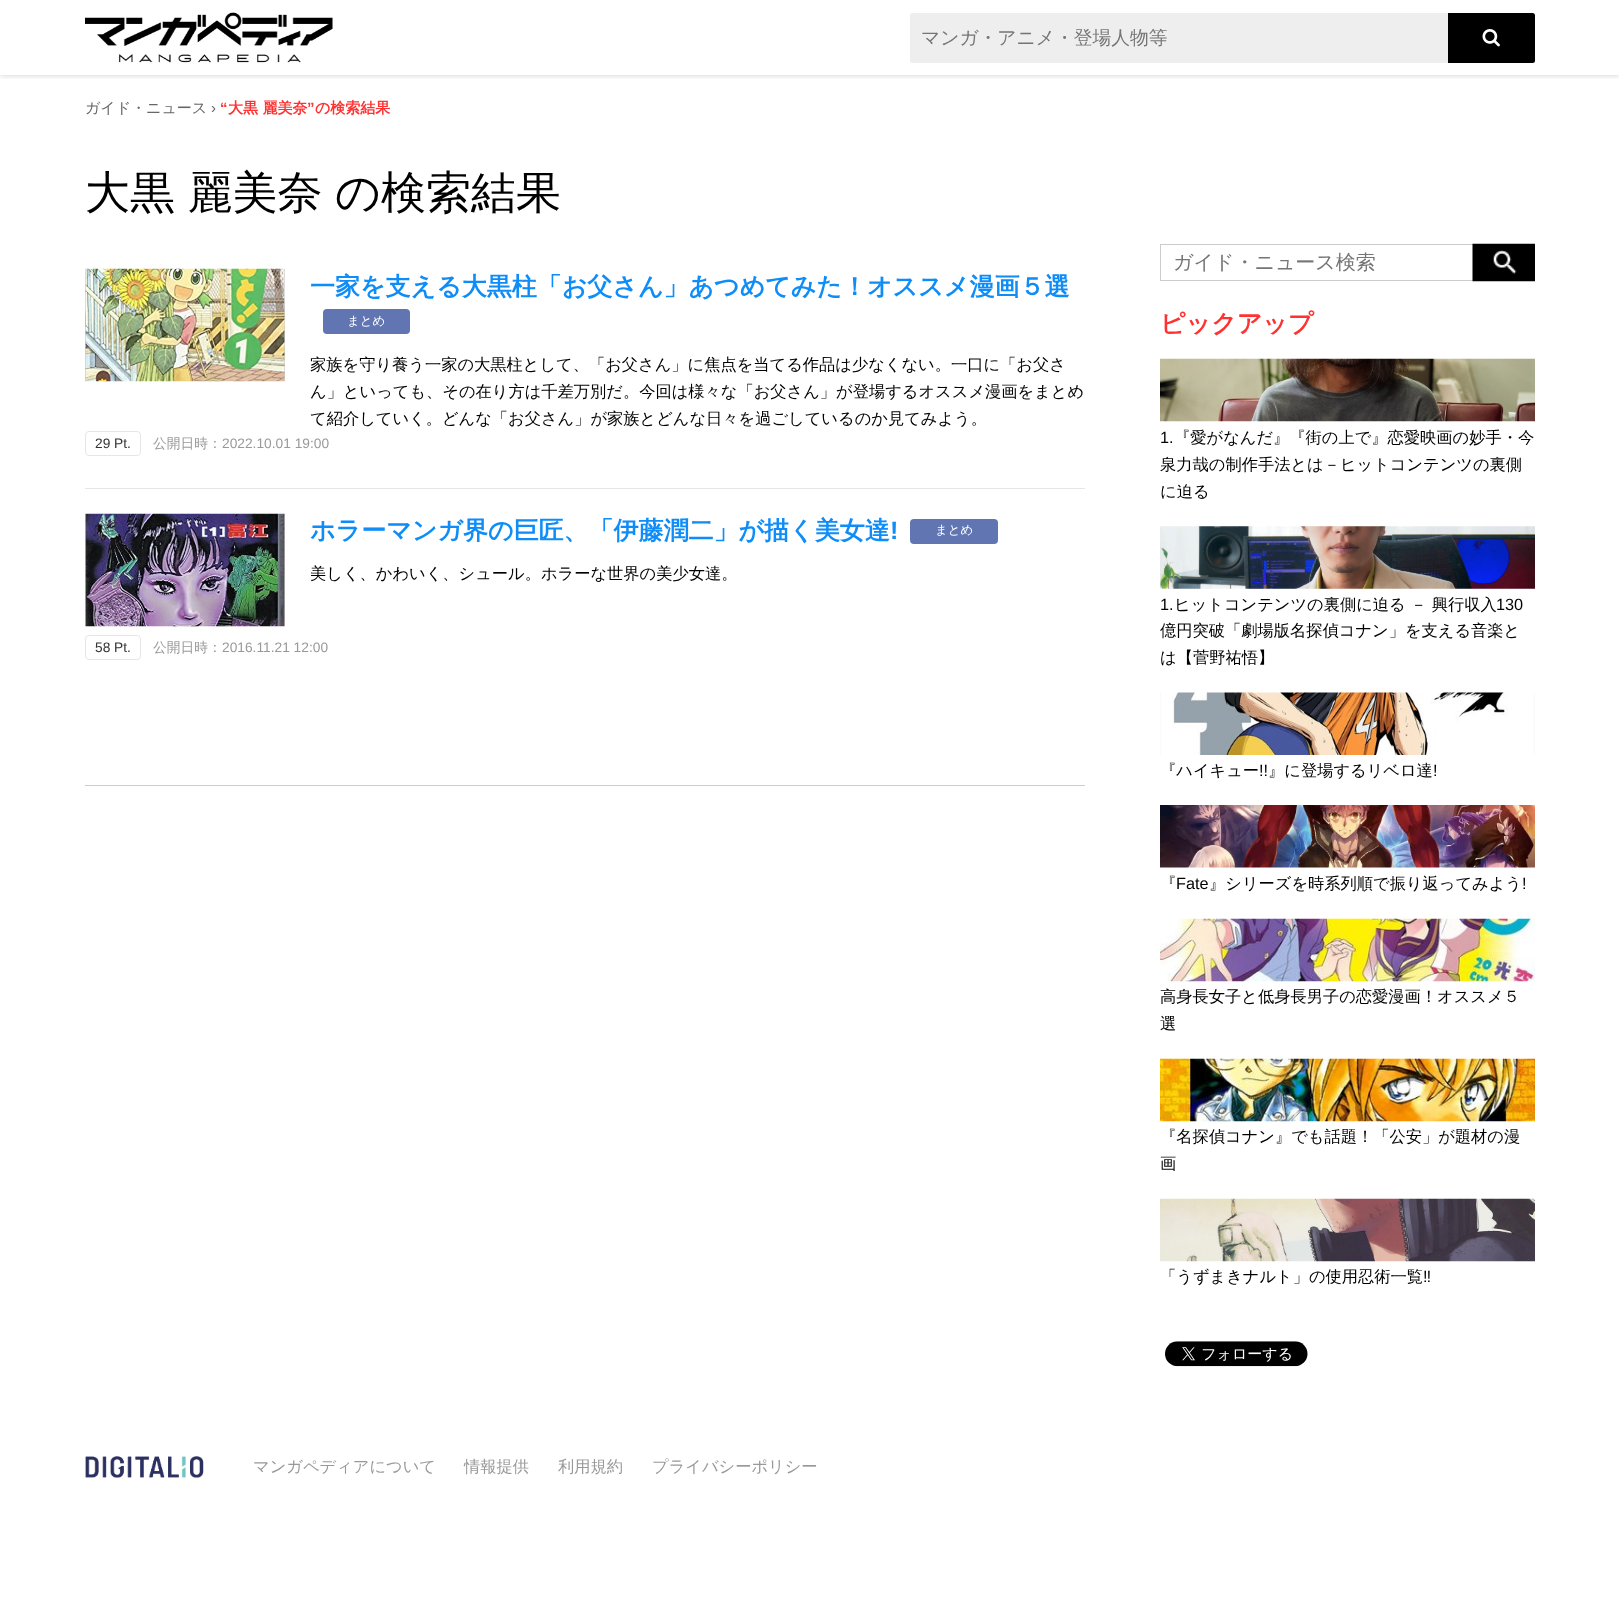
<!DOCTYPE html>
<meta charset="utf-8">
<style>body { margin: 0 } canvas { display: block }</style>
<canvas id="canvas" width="1619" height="1619"></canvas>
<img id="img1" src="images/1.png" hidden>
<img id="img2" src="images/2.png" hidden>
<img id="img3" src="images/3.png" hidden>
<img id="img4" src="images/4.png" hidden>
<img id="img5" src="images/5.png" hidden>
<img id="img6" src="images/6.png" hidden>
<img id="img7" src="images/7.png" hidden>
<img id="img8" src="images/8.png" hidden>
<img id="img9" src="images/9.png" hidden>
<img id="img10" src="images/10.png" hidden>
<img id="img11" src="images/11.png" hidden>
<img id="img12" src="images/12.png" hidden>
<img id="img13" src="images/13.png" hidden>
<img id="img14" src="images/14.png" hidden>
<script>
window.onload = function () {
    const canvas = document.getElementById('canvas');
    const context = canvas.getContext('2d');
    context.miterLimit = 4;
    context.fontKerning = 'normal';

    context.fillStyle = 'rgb(255, 255, 255)';
    context.fillRect(0, 0, 1619, 1619);
    context.save();
    context.beginPath();
    context.rect(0, 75, 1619, 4);
    context.clip();
    context.fillStyle = 'rgba(0, 0, 0, 0.2)';
    context.filter = 'blur(3px)';
    context.beginPath();
    context.rect(0, 0, 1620, 75);
    context.fill();
    context.filter = 'none';
    context.restore();
    context.drawImage(document.getElementById('img1'), 85, 12, 248, 51);
    context.fillStyle = 'rgb(238, 238, 238)';
    context.beginPath();
    context.roundRect(910, 13, 538, 50, [2.5, 0, 0, 2.5]);
    context.fill();
    context.fillStyle = 'rgb(0, 0, 0)';
    context.beginPath();
    context.roundRect(1448, 13, 87, 50, [0, 2.5, 2.5, 0]);
    context.fill();
    context.drawImage(document.getElementById('img2'), 1482, 29, 18, 18);
    context.fillStyle = 'rgb(230, 230, 230)';
    context.fillRect(85, 488, 1000, 1);
    context.drawImage(document.getElementById('img3'), 85, 268, 200, 114);
    context.fillStyle = 'rgb(96, 117, 178)';
    context.beginPath();
    context.roundRect(323, 309, 87, 25, 4);
    context.fill();
    context.beginPath();
    context.roundRect(85.5, 431.5, 55, 24, 3.5);
    context.strokeStyle = 'rgb(230, 230, 230)';
    context.stroke();
    context.drawImage(document.getElementById('img4'), 85, 513, 200, 114);
    context.beginPath();
    context.roundRect(910, 519, 88, 25, 4);
    context.fill();
    context.beginPath();
    context.roundRect(85.5, 635.5, 55, 24, 3.5);
    context.stroke();
    context.fillStyle = 'rgb(204, 204, 204)';
    context.fillRect(85, 785, 1000, 1);
    context.fillRect(1160, 244, 313, 1);
    context.fillRect(1160, 280, 313, 1);
    context.fillRect(1160, 244, 1, 37);
    context.drawImage(document.getElementById('img5'), 1472, 243, 63, 39);
    context.drawImage(document.getElementById('img6'), 1160, 358, 375, 64);
    context.drawImage(document.getElementById('img7'), 1160, 526, 375, 63);
    context.drawImage(document.getElementById('img8'), 1160, 692, 375, 63);
    context.drawImage(document.getElementById('img9'), 1160, 805, 375, 63);
    context.drawImage(document.getElementById('img10'), 1160, 918, 375, 64);
    context.drawImage(document.getElementById('img11'), 1160, 1058, 375, 64);
    context.drawImage(document.getElementById('img12'), 1160, 1198, 375, 64);
    context.drawImage(document.getElementById('img13'), 1165, 1341, 143, 26);
    context.drawImage(document.getElementById('img14'), 85, 1456, 119, 22);
    context.font = '500 18.75px WenQuanYi Zen Hei';
    context.fillStyle = 'rgb(117, 117, 117)';
    context.fillText('マンガ・アニメ・登場人物等', 921, 44);
    context.font = '500 15px WenQuanYi Zen Hei';
    context.fillStyle = 'rgb(102, 102, 102)';
    context.fillText('ガイド・ニュース', 85, 113);
    context.font = 'bold 15px Liberation Sans';
    context.fillStyle = 'rgb(255, 50, 50)';
    context.fillText('“', 220, 113);
    context.font = 'bold 15px WenQuanYi Zen Hei';
    context.fillText('大黒 麗美奈', 228, 113);
    context.font = 'bold 15px Liberation Sans';
    context.fillText('”', 307, 113);
    context.font = 'bold 15px WenQuanYi Zen Hei';
    context.fillText('の検索結果', 315, 113);
    context.font = '15px Liberation Sans';
    context.fillStyle = 'rgb(102, 102, 102)';
    context.fillText('›', 211, 113);
    context.wordSpacing = '-1px';
    context.font = '500 45px WenQuanYi Zen Hei';
    context.fillStyle = 'rgb(0, 0, 0)';
    context.fillText('大黒 麗美奈', 85, 208);
    context.wordSpacing = '0px';
    context.fillText('の検索結果', 335, 208);
    context.font = 'bold 25px WenQuanYi Zen Hei';
    context.fillStyle = 'rgb(14, 141, 249)';
    context.fillText('一家を支える大黒柱「お父さん」あつめてみた！オススメ漫画５選', 310, 295);
    context.font = '500 12.5px WenQuanYi Zen Hei';
    context.fillStyle = 'rgb(255, 255, 255)';
    context.fillText('まとめ', 347, 325);
    context.font = '500 16.25px WenQuanYi Zen Hei';
    context.fillStyle = 'rgb(0, 0, 0)';
    context.fillText('家族を守り養う一家の大黒柱として、「お父さん」に焦点を当てる作品は少なくない。一口に「お父さ', 310, 370);
    context.fillText('ん」といっても、その在り方は千差万別だ。今回は様々な「お父さん」が登場するオススメ漫画をまとめ', 310, 397);
    context.fillText('て紹介していく。どんな「お父さん」が家族とどんな日々を過ごしているのか見てみよう。', 310, 424);
    context.font = '13.75px Liberation Sans';
    context.fillStyle = 'rgb(51, 51, 51)';
    context.fillText('29 Pt.', 95, 448);
    context.font = '500 13.75px WenQuanYi Zen Hei';
    context.fillStyle = 'rgb(153, 153, 153)';
    context.fillText('公開日時：', 153, 448);
    context.font = '13.75px Liberation Sans';
    context.fillText('2022.10.01 19:00', 222, 448);
    context.font = 'bold 25px WenQuanYi Zen Hei';
    context.fillStyle = 'rgb(14, 141, 249)';
    context.fillText('ホラーマンガ界の巨匠、「伊藤潤二」が描く美女達', 310, 539);
    context.font = 'bold 25px Liberation Sans';
    context.fillText('!', 890, 539);
    context.font = '500 12.5px WenQuanYi Zen Hei';
    context.fillStyle = 'rgb(255, 255, 255)';
    context.fillText('まとめ', 935, 534);
    context.font = '500 16.25px WenQuanYi Zen Hei';
    context.fillStyle = 'rgb(0, 0, 0)';
    context.fillText('美しく、かわいく、シュール。ホラーな世界の美少女達。', 310, 579);
    context.font = '13.75px Liberation Sans';
    context.fillStyle = 'rgb(51, 51, 51)';
    context.fillText('58 Pt.', 95, 652);
    context.font = '500 13.75px WenQuanYi Zen Hei';
    context.fillStyle = 'rgb(153, 153, 153)';
    context.fillText('公開日時：', 153, 652);
    context.font = '13.75px Liberation Sans';
    context.fillText('2016.11.21 12:00', 222, 652);
    context.font = '500 20px WenQuanYi Zen Hei';
    context.fillStyle = 'rgb(117, 117, 117)';
    context.fillText('ガイド・ニュース検索', 1173, 269);
    context.font = 'bold 25px WenQuanYi Zen Hei';
    context.fillStyle = 'rgb(255, 50, 50)';
    context.fillText('ピックアップ', 1160, 332);
    context.font = '16.25px Liberation Sans';
    context.fillStyle = 'rgb(0, 0, 0)';
    context.fillText('1.', 1160, 443);
    context.font = '500 16.25px WenQuanYi Zen Hei';
    context.fillText('『愛がなんだ』『街の上で』恋愛映画の妙手・今', 1174, 443);
    context.fillText('泉力哉の制作手法とは－ヒットコンテンツの裏側', 1160, 470);
    context.fillText('に迫る', 1160, 497);
    context.font = '16.25px Liberation Sans';
    context.fillText('1.', 1160, 610);
    context.font = '500 16.25px WenQuanYi Zen Hei';
    context.fillText('ヒットコンテンツの裏側に迫る － 興行収入', 1174, 610);
    context.font = '16.25px Liberation Sans';
    context.fillText('130', 1496, 610);
    context.font = '500 16.25px WenQuanYi Zen Hei';
    context.fillText('億円突破「劇場版名探偵コナン」を支える音楽と', 1160, 636);
    context.fillText('は【菅野祐悟】', 1160, 663);
    context.fillText('『ハイキュー', 1160, 776);
    context.font = '16.25px Liberation Sans';
    context.fillText('!!', 1259, 776);
    context.font = '500 16.25px WenQuanYi Zen Hei';
    context.fillText('』に登場するリベロ達', 1268, 776);
    context.font = '16.25px Liberation Sans';
    context.fillText('!', 1433, 776);
    context.font = '500 16.25px WenQuanYi Zen Hei';
    context.fillText('『', 1160, 889);
    context.font = '16.25px Liberation Sans';
    context.fillText('Fate', 1176, 889);
    context.font = '500 16.25px WenQuanYi Zen Hei';
    context.fillText('』シリーズを時系列順で振り返ってみよう', 1209, 889);
    context.font = '16.25px Liberation Sans';
    context.fillText('!', 1522, 889);
    context.font = '500 16.25px WenQuanYi Zen Hei';
    context.fillText('高身長女子と低身長男子の恋愛漫画！オススメ５', 1160, 1002);
    context.fillText('選', 1160, 1029);
    context.fillText('『名探偵コナン』でも話題！「公安」が題材の漫', 1160, 1142);
    context.fillText('画', 1160, 1169);
    context.fillText('「うずまきナルト」の使用忍術一覧', 1160, 1282);
    context.font = '16.25px Liberation Sans';
    context.fillText('‼', 1423, 1282);
    context.font = '500 16.25px WenQuanYi Zen Hei';
    context.fillStyle = 'rgb(153, 153, 153)';
    context.fillText('マンガペディアについて', 253, 1472);
    context.fillText('情報提供', 464, 1472);
    context.fillText('利用規約', 558, 1472);
    context.fillText('プライバシーポリシー', 652, 1472);
};
</script>
